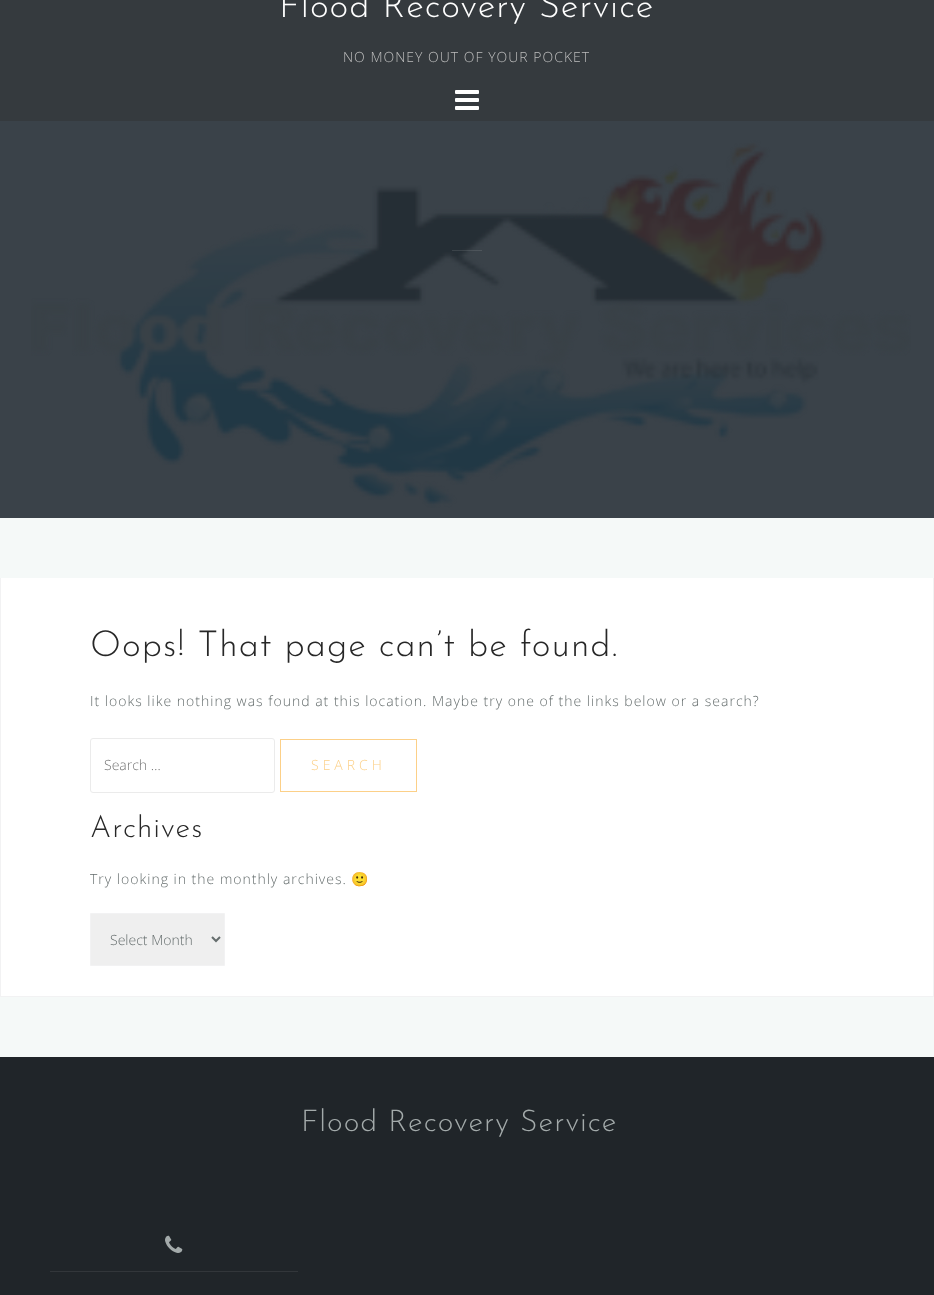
<!DOCTYPE html>
<meta charset="utf-8">
<style>body { margin: 0 } canvas { display: block }</style>
<canvas id="canvas" width="934" height="1295"></canvas>
<img id="img1" src="images/1.png" hidden>
<img id="img2" src="images/2.png" hidden>
<img id="img3" src="images/3.png" hidden>
<script>
window.onload = function () {
    const canvas = document.getElementById('canvas');
    const context = canvas.getContext('2d');
    context.miterLimit = 4;
    context.fontKerning = 'normal';

    context.fillStyle = 'rgb(245, 249, 248)';
    context.fillRect(0, 0, 934, 1295);
    context.fillStyle = 'rgb(58, 66, 73)';
    context.fillRect(0, 121, 934, 397);
    context.fillStyle = 'rgb(53, 58, 62)';
    context.fillRect(0, 0, 934, 121);
    context.drawImage(document.getElementById('img1'), 455, 90, 24, 20);
    context.drawImage(document.getElementById('img2'), 31, 140, 880, 368);
    context.fillStyle = 'rgba(255, 255, 255, 0.1)';
    context.fillRect(452, 250, 30, 1);
    context.fillStyle = 'rgb(255, 255, 255)';
    context.fillRect(1, 578, 932, 418);
    context.fillStyle = 'rgb(242, 242, 243)';
    context.fillRect(933, 578, 1, 419);
    context.fillRect(0, 996, 934, 1);
    context.fillRect(0, 578, 1, 419);
    context.beginPath();
    context.roundRect(90.5, 738.5, 184, 54, 2.5);
    context.strokeStyle = 'rgb(235, 235, 235)';
    context.stroke();
    context.strokeStyle = 'rgb(252, 208, 136)';
    context.strokeRect(280.5, 739.5, 136, 52);
    context.fillStyle = 'rgb(239, 239, 239)';
    context.beginPath();
    context.rect(90.5, 913.5, 134, 52);
    context.fill();
    context.strokeStyle = 'rgb(242, 242, 243)';
    context.stroke();
    context.beginPath();
    context.moveTo(212, 937);
    context.lineTo(216, 941);
    context.lineTo(220, 937);
    context.strokeStyle = 'rgb(101, 109, 109)';
    context.lineWidth = 2;
    context.stroke();
    context.fillStyle = 'rgb(32, 37, 41)';
    context.fillRect(0, 1057, 934, 238);
    context.drawImage(document.getElementById('img3'), 165, 1235, 18, 18);
    context.fillStyle = 'rgb(50, 54, 58)';
    context.fillRect(50, 1271, 248, 1);
    context.letterSpacing = '1px';
    context.font = '100 36px Josefin Sans';
    context.fillStyle = 'rgb(255, 255, 255)';
    context.fillText('Flood Recovery Service', 279, 17);
    context.font = '300 14px Open Sans';
    context.fillStyle = 'rgb(189, 189, 189)';
    context.fillText('NO MONEY OUT OF YOUR POCKET', 343, 62);
    context.font = '100 36px Josefin Sans';
    context.fillStyle = 'rgb(39, 39, 39)';
    context.fillText('Oops! That page can’t be found.', 90, 656);
    context.font = '300 14px Open Sans';
    context.fillStyle = 'rgb(101, 109, 109)';
    context.fillText('It looks like nothing was found at this location. Maybe try one of the links below or a search?', 90, 706);
    context.letterSpacing = '0px';
    context.fillStyle = 'rgb(117, 117, 117)';
    context.fillText('Search …', 104, 770);
    context.letterSpacing = '4px';
    context.fillStyle = 'rgb(252, 208, 136)';
    context.fillText('SEARCH', 311, 770);
    context.letterSpacing = '1px';
    context.font = '100 30px Josefin Sans';
    context.fillStyle = 'rgb(39, 39, 39)';
    context.fillText('Archives', 90, 837);
    context.font = '300 14px Open Sans';
    context.fillStyle = 'rgb(101, 109, 109)';
    context.fillText('Try looking in the monthly archives.', 90, 884);
    context.font = '14px Noto Color Emoji';
    context.fillText('🙂', 351, 884);
    context.letterSpacing = '0px';
    context.font = '300 14px Open Sans';
    context.fillText('Select Month', 110, 945);
    context.letterSpacing = '1px';
    context.font = '100 30px Josefin Sans';
    context.fillStyle = 'rgb(163, 170, 170)';
    context.fillText('Flood Recovery Service', 301, 1131);
};
</script>
